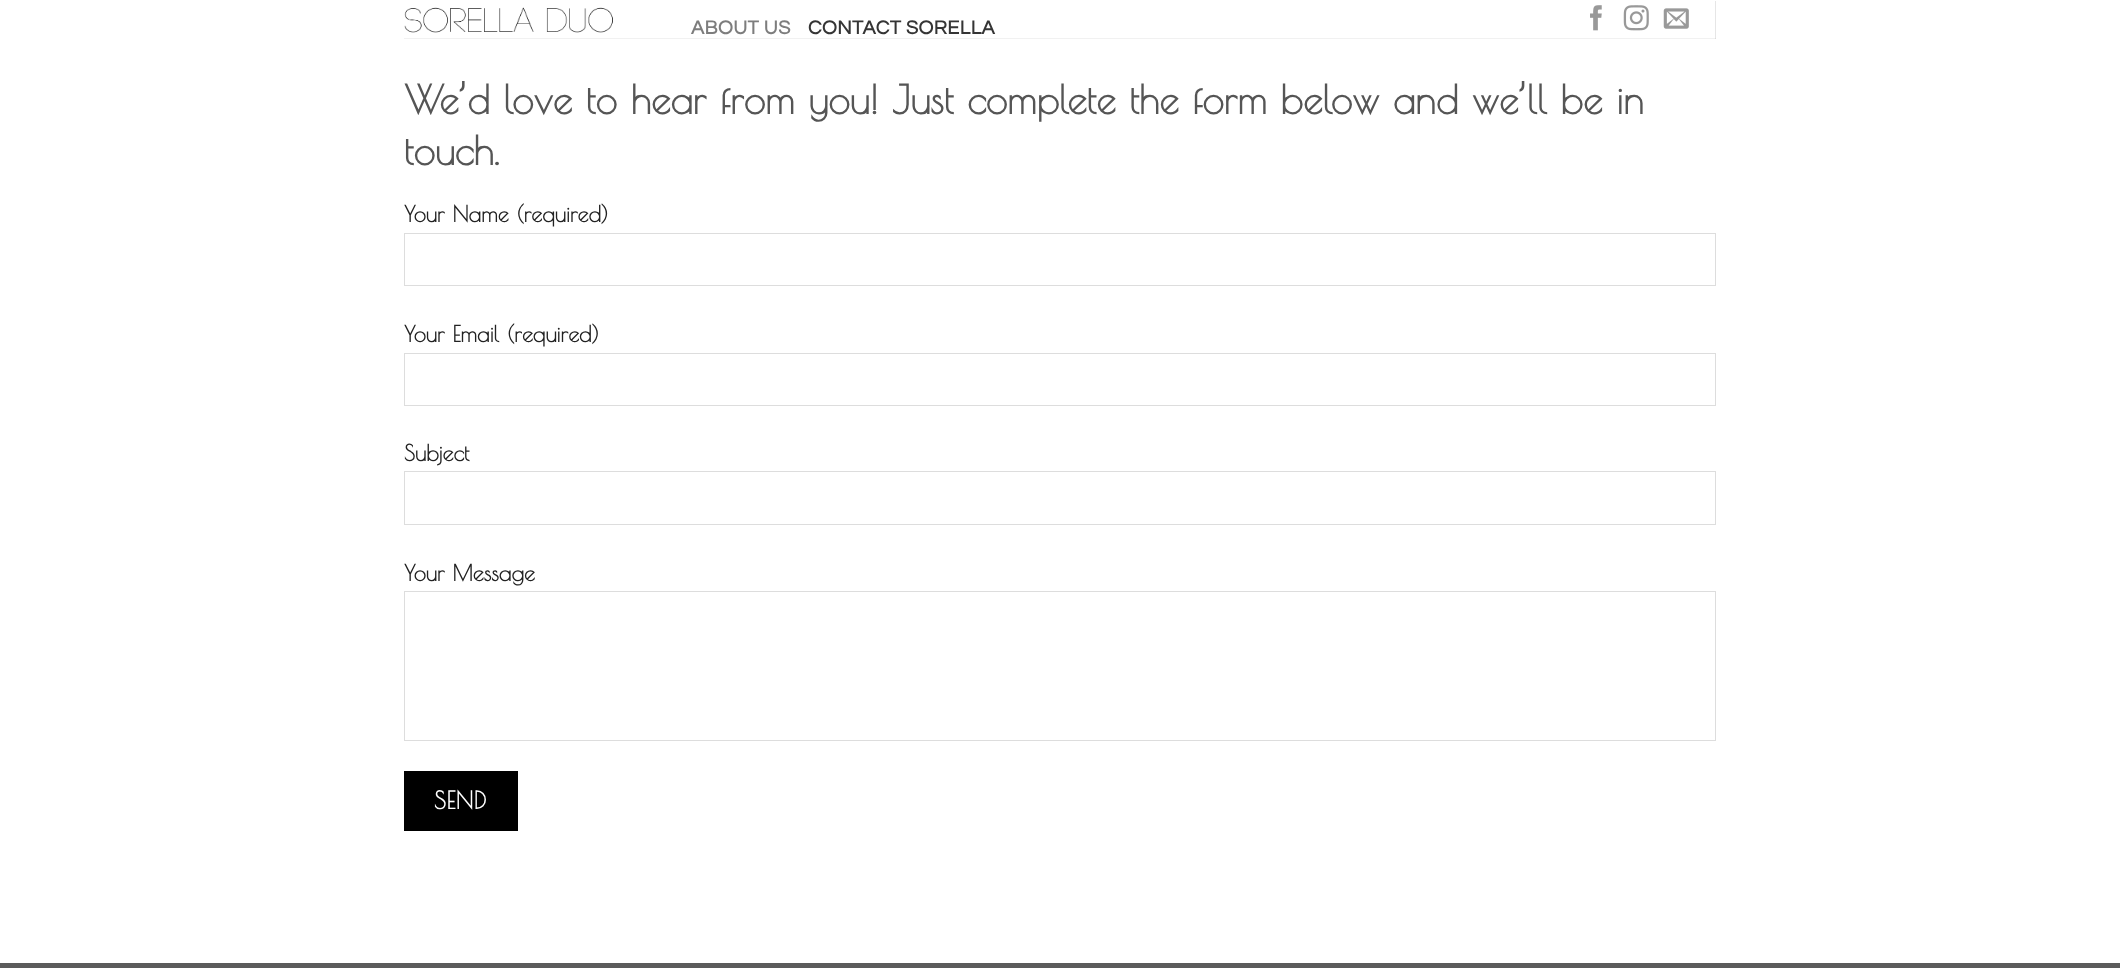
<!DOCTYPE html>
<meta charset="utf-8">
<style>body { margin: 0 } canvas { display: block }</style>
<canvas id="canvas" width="2120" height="968"></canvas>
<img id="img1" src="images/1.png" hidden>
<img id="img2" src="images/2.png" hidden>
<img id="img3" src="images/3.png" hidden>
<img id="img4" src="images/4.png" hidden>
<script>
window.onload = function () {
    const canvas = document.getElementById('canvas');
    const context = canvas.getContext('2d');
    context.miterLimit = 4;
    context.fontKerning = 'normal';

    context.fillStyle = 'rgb(255, 255, 255)';
    context.fillRect(0, 0, 2120, 968);
    context.fillStyle = 'rgb(241, 241, 241)';
    context.fillRect(404, 38, 1312, 1);
    context.drawImage(document.getElementById('img1'), 404, 7, 209, 26);
    context.drawImage(document.getElementById('img2'), 1590, 5, 12, 26);
    context.drawImage(document.getElementById('img3'), 1623, 5, 26, 26);
    context.drawImage(document.getElementById('img4'), 1663, 8, 26, 21);
    context.fillStyle = 'rgb(230, 230, 230)';
    context.fillRect(1715, 1, 1, 38);
    context.fillStyle = 'rgb(219, 219, 219)';
    context.fillRect(1715, 38, 1, 1);
    context.strokeStyle = 'rgb(221, 221, 221)';
    context.strokeRect(404.5, 233.5, 1311, 52);
    context.strokeRect(404.5, 353.5, 1311, 52);
    context.strokeRect(404.5, 471.5, 1311, 53);
    context.strokeRect(404.5, 591.5, 1311, 149);
    context.fillStyle = 'rgb(0, 0, 0)';
    context.fillRect(404, 771, 114, 60);
    context.fillStyle = 'rgb(91, 91, 91)';
    context.fillRect(0, 963, 2120, 5);
    context.letterSpacing = '0.4px';
    context.font = 'bold 19.75px Questrial';
    context.fillStyle = 'rgb(125, 125, 125)';
    context.fillText('ABOUT US', 691, 34);
    context.fillStyle = 'rgb(53, 53, 53)';
    context.fillText('CONTACT SORELLA', 808, 34);
    context.letterSpacing = '0px';
    context.font = 'bold 39.35px Poiret One';
    context.fillStyle = 'rgb(85, 85, 85)';
    context.fillText('We’d love to hear from you! Just complete the form below and we’ll be in', 404, 114);
    context.fillText('touch.', 404, 165);
    context.font = 'bold 22.1px Poiret One';
    context.fillStyle = 'rgb(34, 34, 34)';
    context.fillText('Your Name (required)', 404, 222);
    context.fillText('Your Email (required)', 404, 342);
    context.fillText('Subject', 404, 461);
    context.fillText('Your Message', 404, 581);
    context.letterSpacing = '0.5px';
    context.font = 'bold 24px Poiret One';
    context.fillStyle = 'rgb(255, 255, 255)';
    context.fillText('SEND', 434, 809);
};
</script>
